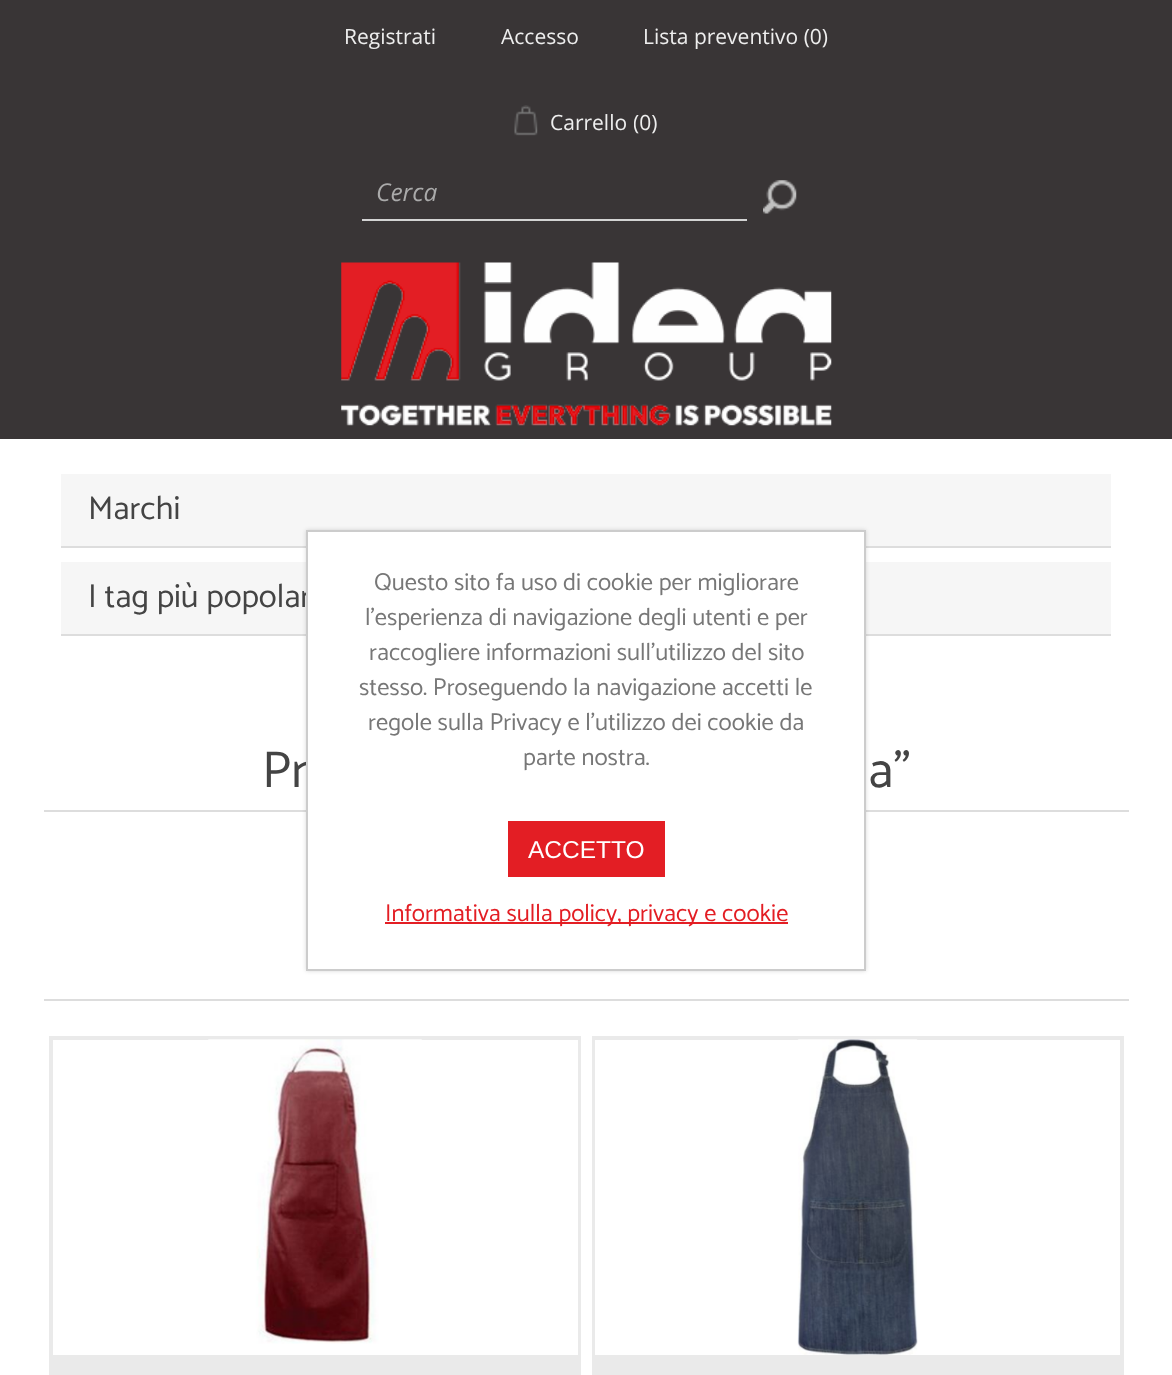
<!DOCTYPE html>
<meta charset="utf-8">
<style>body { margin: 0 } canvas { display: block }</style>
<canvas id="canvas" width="1172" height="1375"></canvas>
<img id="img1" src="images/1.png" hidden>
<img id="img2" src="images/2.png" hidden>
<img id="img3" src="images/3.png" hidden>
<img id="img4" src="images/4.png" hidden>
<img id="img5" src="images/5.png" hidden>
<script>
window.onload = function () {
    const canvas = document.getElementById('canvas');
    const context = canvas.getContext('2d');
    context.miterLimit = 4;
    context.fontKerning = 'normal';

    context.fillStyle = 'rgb(255, 255, 255)';
    context.fillRect(0, 0, 1172, 1375);
    context.fillStyle = 'rgb(57, 53, 54)';
    context.fillRect(0, 0, 1172, 439);
    context.drawImage(document.getElementById('img1'), 514, 105, 24, 31);
    context.fillStyle = 'rgb(211, 211, 211)';
    context.fillRect(362, 219, 385, 2);
    context.drawImage(document.getElementById('img2'), 763, 180, 34, 34);
    context.drawImage(document.getElementById('img3'), 341, 262, 491, 164);
    context.fillStyle = 'rgb(246, 246, 246)';
    context.fillRect(61, 474, 1050, 72);
    context.fillStyle = 'rgb(221, 221, 221)';
    context.fillRect(61, 546, 1050, 2);
    context.fillStyle = 'rgb(246, 246, 246)';
    context.fillRect(61, 562, 1050, 72);
    context.fillStyle = 'rgb(221, 221, 221)';
    context.fillRect(61, 634, 1050, 2);
    context.fillRect(44, 810, 1085, 2);
    context.fillRect(44, 999, 1085, 2);
    context.strokeStyle = 'rgb(234, 234, 234)';
    context.lineWidth = 4;
    context.strokeRect(51, 1038, 528, 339);
    context.fillStyle = 'rgb(255, 255, 255)';
    context.fillRect(577, 1040, 1, 315);
    context.drawImage(document.getElementById('img4'), 208, 1039, 214, 305);
    context.fillStyle = 'rgb(234, 234, 234)';
    context.fillRect(53, 1355, 524, 20);
    context.strokeRect(594, 1038, 528, 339);
    context.fillStyle = 'rgb(255, 255, 255)';
    context.fillRect(595, 1040, 1, 315);
    context.drawImage(document.getElementById('img5'), 797, 1039, 121, 316);
    context.fillStyle = 'rgb(234, 234, 234)';
    context.fillRect(596, 1355, 524, 20);
    context.fillStyle = 'rgba(0, 0, 0, 0.15)';
    context.filter = 'blur(2px)';
    context.beginPath();
    context.rect(306, 530, 560, 441);
    context.fill();
    context.filter = 'none';
    context.font = '21px Open Sans';
    context.fillStyle = 'rgb(238, 238, 238)';
    context.fillText('Registrati', 344, 44);
    context.fillText('Accesso', 501, 44);
    context.fillText('Lista preventivo (0)', 643, 44);
    context.fillText('Carrello', 550, 130);
    context.save();
    context.beginPath();
    context.rect(634, 95, 24, 56);
    context.clip();
    context.fillText('(0)', 633, 130);
    context.restore();
    context.font = 'italic 24.5px Open Sans';
    context.fillStyle = 'rgb(170, 170, 170)';
    context.fillText('Cerca', 376, 201);
    context.font = '100 33.25px Catamaran';
    context.fillStyle = 'rgb(68, 68, 68)';
    context.fillText('Marchi', 88, 519);
    context.fillText('I tag più popolar', 88, 607);
    context.font = '100 52px Catamaran';
    context.fillText('Pr', 262, 787);
    context.fillText('a"', 868, 787);
    context.fillStyle = 'rgb(255, 255, 255)';
    context.beginPath();
    context.rect(307, 531, 558, 439);
    context.fill();
    context.strokeStyle = 'rgb(204, 204, 204)';
    context.lineWidth = 2;
    context.stroke();
    context.font = '100 24.5px Catamaran';
    context.fillStyle = 'rgb(119, 119, 119)';
    context.fillText('Questo sito fa uso di cookie per migliorare', 374, 590);
    context.fillText('l’esperienza di navigazione degli utenti e per', 365, 625);
    context.fillText('raccogliere informazioni sull’utilizzo del sito', 369, 660);
    context.fillText('stesso. Proseguendo la navigazione accetti le', 359, 695);
    context.fillText('regole sulla Privacy e l\'utilizzo dei cookie da', 368, 730);
    context.fillText('parte nostra.', 523, 765);
    context.fillStyle = 'rgb(227, 30, 36)';
    context.fillRect(508, 821, 157, 56);
    context.font = '24.5px Liberation Sans';
    context.fillStyle = 'rgb(255, 255, 255)';
    context.fillText('ACCETTO', 528, 858);
    context.fillStyle = 'rgb(227, 30, 36)';
    context.fillRect(385, 922, 403, 2);
    context.font = '100 24.5px Catamaran';
    context.fillText('Informativa sulla policy, privacy e cookie', 385, 921);
};
</script>
